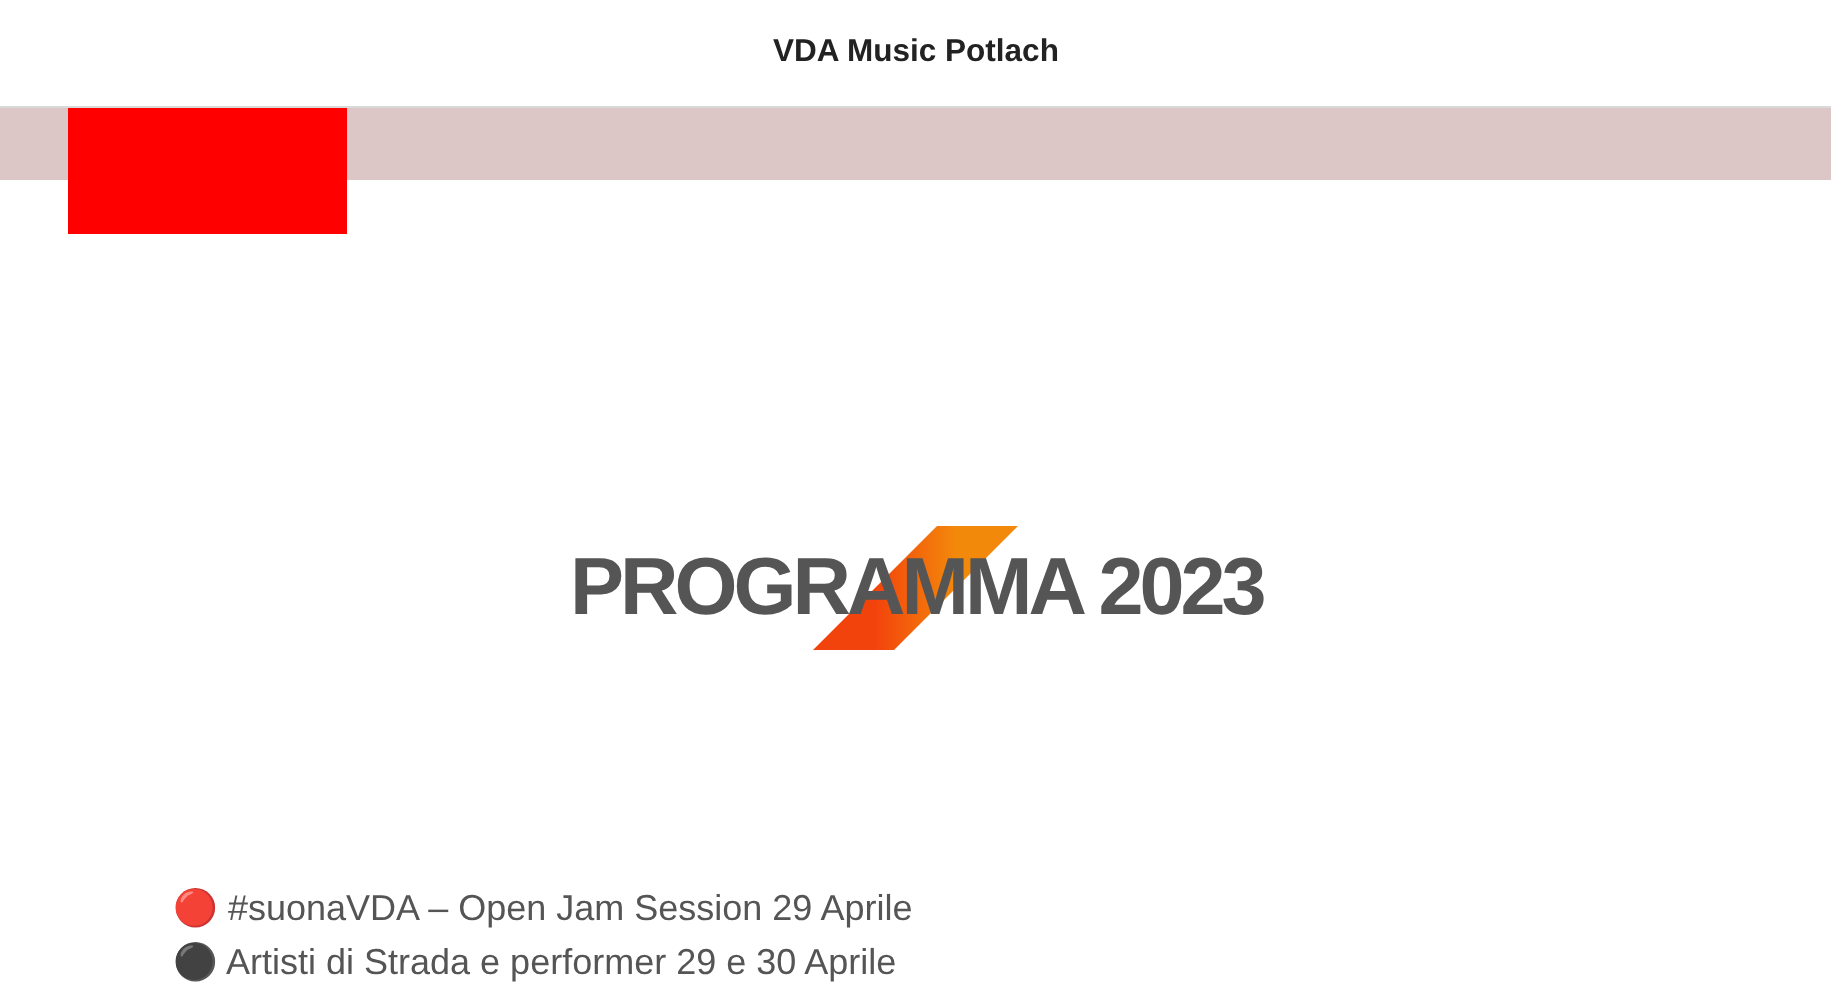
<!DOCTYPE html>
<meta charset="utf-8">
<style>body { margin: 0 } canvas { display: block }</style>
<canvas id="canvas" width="1831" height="992"></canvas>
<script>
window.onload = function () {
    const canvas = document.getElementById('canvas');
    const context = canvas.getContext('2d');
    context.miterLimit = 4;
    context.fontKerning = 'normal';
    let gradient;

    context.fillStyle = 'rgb(255, 255, 255)';
    context.fillRect(0, 0, 1831, 992);
    context.fillStyle = 'rgb(217, 217, 217)';
    context.fillRect(0, 106, 1831, 2);
    context.fillStyle = 'rgb(220, 198, 198)';
    context.fillRect(0, 108, 1831, 72);
    context.fillStyle = 'rgb(255, 0, 0)';
    context.fillRect(68, 108, 279, 126);
    gradient = context.createLinearGradient(875, 588, 956, 588);
    gradient.addColorStop(0, 'rgb(243, 67, 12)');
    gradient.addColorStop(1, 'rgb(243, 137, 11)');
    context.fillStyle = gradient;
    context.beginPath();
    context.moveTo(937, 526);
    context.lineTo(1018, 526);
    context.lineTo(894, 650);
    context.lineTo(813, 650);
    context.closePath();
    context.fill();
    context.font = 'bold 31.5px Liberation Sans';
    context.fillStyle = 'rgb(34, 34, 34)';
    context.fillText('VDA Music Potlach', 773, 61);
    context.letterSpacing = '-4px';
    context.font = 'bold 81px Liberation Sans';
    context.fillStyle = 'rgb(85, 85, 85)';
    context.fillText('PROGRAMMA 2023', 570, 614);
    context.letterSpacing = '0px';
    context.font = '36px Noto Color Emoji';
    context.fillText('🔴', 173, 920);
    context.font = '36px Liberation Sans';
    context.fillText('#suonaVDA – Open Jam Session 29 Aprile', 228, 920);
    context.font = '36px Noto Color Emoji';
    context.fillText('⚫', 173, 974);
    context.font = '36px Liberation Sans';
    context.fillText('Artisti di Strada e performer 29 e 30 Aprile', 226, 974);
};
</script>
